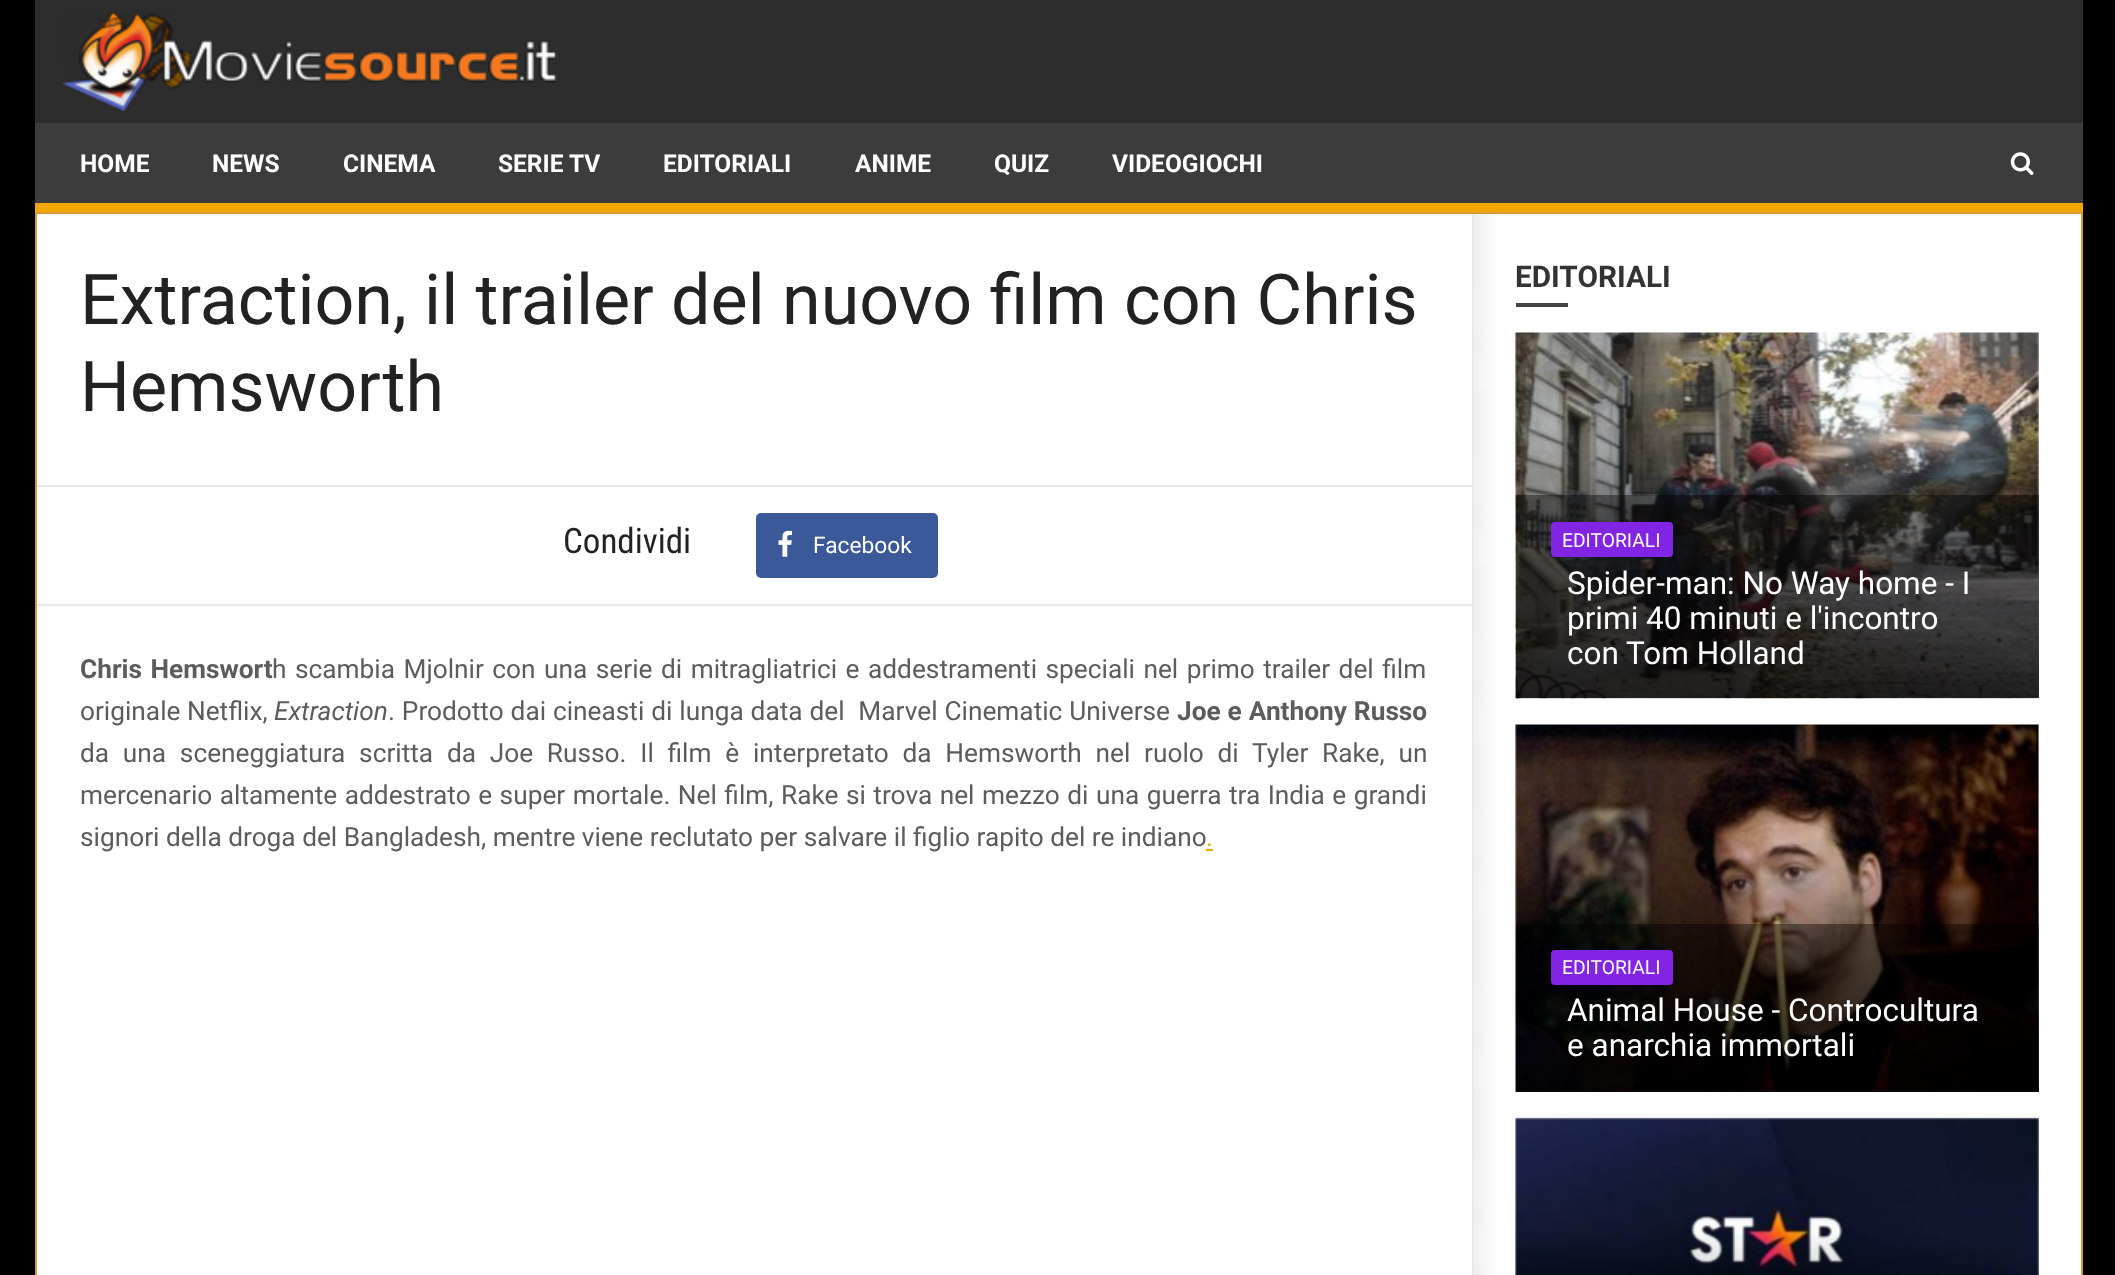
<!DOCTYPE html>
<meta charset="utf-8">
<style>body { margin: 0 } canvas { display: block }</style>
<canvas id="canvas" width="2115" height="1275"></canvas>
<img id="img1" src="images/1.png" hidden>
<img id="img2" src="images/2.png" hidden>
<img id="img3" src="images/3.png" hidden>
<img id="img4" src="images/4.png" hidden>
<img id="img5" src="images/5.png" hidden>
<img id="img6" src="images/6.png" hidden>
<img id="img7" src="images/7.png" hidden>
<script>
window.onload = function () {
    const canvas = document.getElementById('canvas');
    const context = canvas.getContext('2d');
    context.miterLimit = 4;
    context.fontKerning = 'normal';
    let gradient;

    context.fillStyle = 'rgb(0, 0, 0)';
    context.fillRect(0, 0, 2115, 1275);
    context.fillStyle = 'rgb(45, 45, 45)';
    context.fillRect(35, 0, 2048, 123);
    context.drawImage(document.getElementById('img1'), 60, 12, 497, 100);
    context.fillStyle = 'rgb(60, 60, 60)';
    context.fillRect(35, 123, 2048, 80);
    context.fillStyle = 'rgb(241, 166, 2)';
    context.fillRect(35, 203, 2048, 9);
    context.drawImage(document.getElementById('img2'), 2010, 152, 24, 23);
    context.fillStyle = 'rgb(255, 255, 255)';
    context.beginPath();
    context.rect(36, 213, 2046, 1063);
    context.fill();
    context.strokeStyle = 'rgb(221, 153, 51)';
    context.lineWidth = 2;
    context.stroke();
    context.fillStyle = 'rgb(233, 233, 233)';
    context.fillRect(37, 485, 1435, 2);
    context.fillRect(37, 604, 1435, 2);
    context.fillStyle = 'rgb(59, 89, 152)';
    context.beginPath();
    context.roundRect(756, 513, 182, 65, 5);
    context.fill();
    context.drawImage(document.getElementById('img3'), 778, 530, 14, 27);
    context.fillStyle = 'rgb(241, 166, 2)';
    context.fillRect(1206, 849, 7, 2);
    context.drawImage(document.getElementById('img4'), 1473, 213, 23, 1062);
    context.fillStyle = 'rgb(233, 233, 233)';
    context.fillRect(1472, 214, 2, 1061);
    context.fillStyle = 'rgb(68, 68, 68)';
    context.fillRect(1516, 303, 52, 4);
    context.drawImage(document.getElementById('img5'), 1515, 332, 524, 367);
    gradient = context.createLinearGradient(1777, 443, 1777, 698);
    gradient.addColorStop(0, 'rgba(0, 0, 0, 0)');
    gradient.addColorStop(1, 'rgba(0, 0, 0, 0.7)');
    context.fillStyle = gradient;
    context.fillRect(1516, 451, 523, 247);
    context.fillStyle = 'rgba(0, 0, 0, 0.4)';
    context.fillRect(1516, 495, 523, 203);
    context.fillStyle = 'rgb(130, 36, 227)';
    context.beginPath();
    context.roundRect(1551, 522, 122, 35, 4);
    context.fill();
    context.drawImage(document.getElementById('img6'), 1515, 724, 524, 368);
    gradient = context.createLinearGradient(1777, 835, 1777, 1092);
    gradient.addColorStop(0, 'rgba(0, 0, 0, 0)');
    gradient.addColorStop(1, 'rgba(0, 0, 0, 0.7)');
    context.fillStyle = gradient;
    context.fillRect(1516, 843, 523, 249);
    context.fillStyle = 'rgba(0, 0, 0, 0.4)';
    context.fillRect(1516, 924, 523, 168);
    context.fillStyle = 'rgb(130, 36, 227)';
    context.beginPath();
    context.roundRect(1551, 950, 122, 35, 4);
    context.fill();
    context.drawImage(document.getElementById('img7'), 1515, 1117, 524, 158);
    gradient = context.createLinearGradient(1777, 1227, 1777, 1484);
    gradient.addColorStop(0, 'rgba(0, 0, 0, 0)');
    gradient.addColorStop(1, 'rgba(0, 0, 0, 0.7)');
    context.fillStyle = gradient;
    context.fillRect(1516, 1235, 523, 40);
    context.font = 'bold 24.5px Roboto';
    context.fillStyle = 'rgb(255, 255, 255)';
    context.fillText('HOME', 80, 172);
    context.fillText('NEWS', 212, 172);
    context.fillText('CINEMA', 343, 172);
    context.fillText('SERIE TV', 498, 172);
    context.fillText('EDITORIALI', 663, 172);
    context.fillText('ANIME', 855, 172);
    context.fillText('QUIZ', 994, 172);
    context.fillText('VIDEOGIOCHI', 1112, 172);
    context.font = '70px Roboto';
    context.fillStyle = 'rgb(34, 34, 34)';
    context.fillText('Extraction, il trailer del nuovo film con Chris', 80, 324);
    context.fillText('Hemsworth', 80, 411);
    context.font = '35px Roboto Condensed';
    context.fillText('Condividi', 563, 553);
    context.font = '22.75px Roboto';
    context.fillStyle = 'rgb(255, 255, 255)';
    context.fillText('Facebook', 813, 553);
    context.wordSpacing = '2px';
    context.font = 'bold 26.25px Roboto';
    context.fillStyle = 'rgb(92, 92, 92)';
    context.fillText('Chris Hemswort', 80, 678);
    context.font = '26.25px Roboto';
    context.fillText('h scambia Mjolnir con una serie di mitragliatrici e addestramenti speciali nel primo trailer del film', 272, 678);
    context.wordSpacing = '0px';
    context.fillText('originale Netflix,', 80, 720);
    context.font = 'italic 26.25px Roboto';
    context.fillText('Extraction', 274, 720);
    context.wordSpacing = '0.4px';
    context.font = '26.25px Roboto';
    context.fillText('. Prodotto dai cineasti di lunga data del  Marvel Cinematic Universe', 388, 720);
    context.font = 'bold 26.25px Roboto';
    context.fillText('Joe e Anthony Russo', 1177, 720);
    context.wordSpacing = '7.25px';
    context.font = '26.25px Roboto';
    context.fillText('da una sceneggiatura scritta da Joe Russo. Il film è interpretato da Hemsworth nel ruolo di Tyler Rake, un', 80, 762);
    context.wordSpacing = '1px';
    context.fillText('mercenario altamente addestrato e super mortale. Nel film, Rake si trova nel mezzo di una guerra tra India e grandi', 80, 804);
    context.wordSpacing = '0px';
    context.fillText('signori della droga del Bangladesh, mentre viene reclutato per salvare il figlio rapito del re indiano', 80, 846);
    context.fillStyle = 'rgb(241, 166, 2)';
    context.fillText('.', 1206, 846);
    context.font = 'bold 29.75px Roboto';
    context.fillStyle = 'rgb(51, 51, 51)';
    context.fillText('EDITORIALI', 1515, 287);
    context.font = '19.25px Roboto';
    context.fillStyle = 'rgb(255, 255, 255)';
    context.fillText('EDITORIALI', 1562, 547);
    context.font = '31.5px Roboto';
    context.fillText('Spider-man: No Way home - I', 1567, 594);
    context.fillText('primi 40 minuti e l\'incontro', 1567, 629);
    context.fillText('con Tom Holland', 1567, 664);
    context.font = '19.25px Roboto';
    context.fillText('EDITORIALI', 1562, 974);
    context.font = '31.5px Roboto';
    context.fillText('Animal House - Controcultura', 1567, 1021);
    context.fillText('e anarchia immortali', 1567, 1056);
};
</script>
